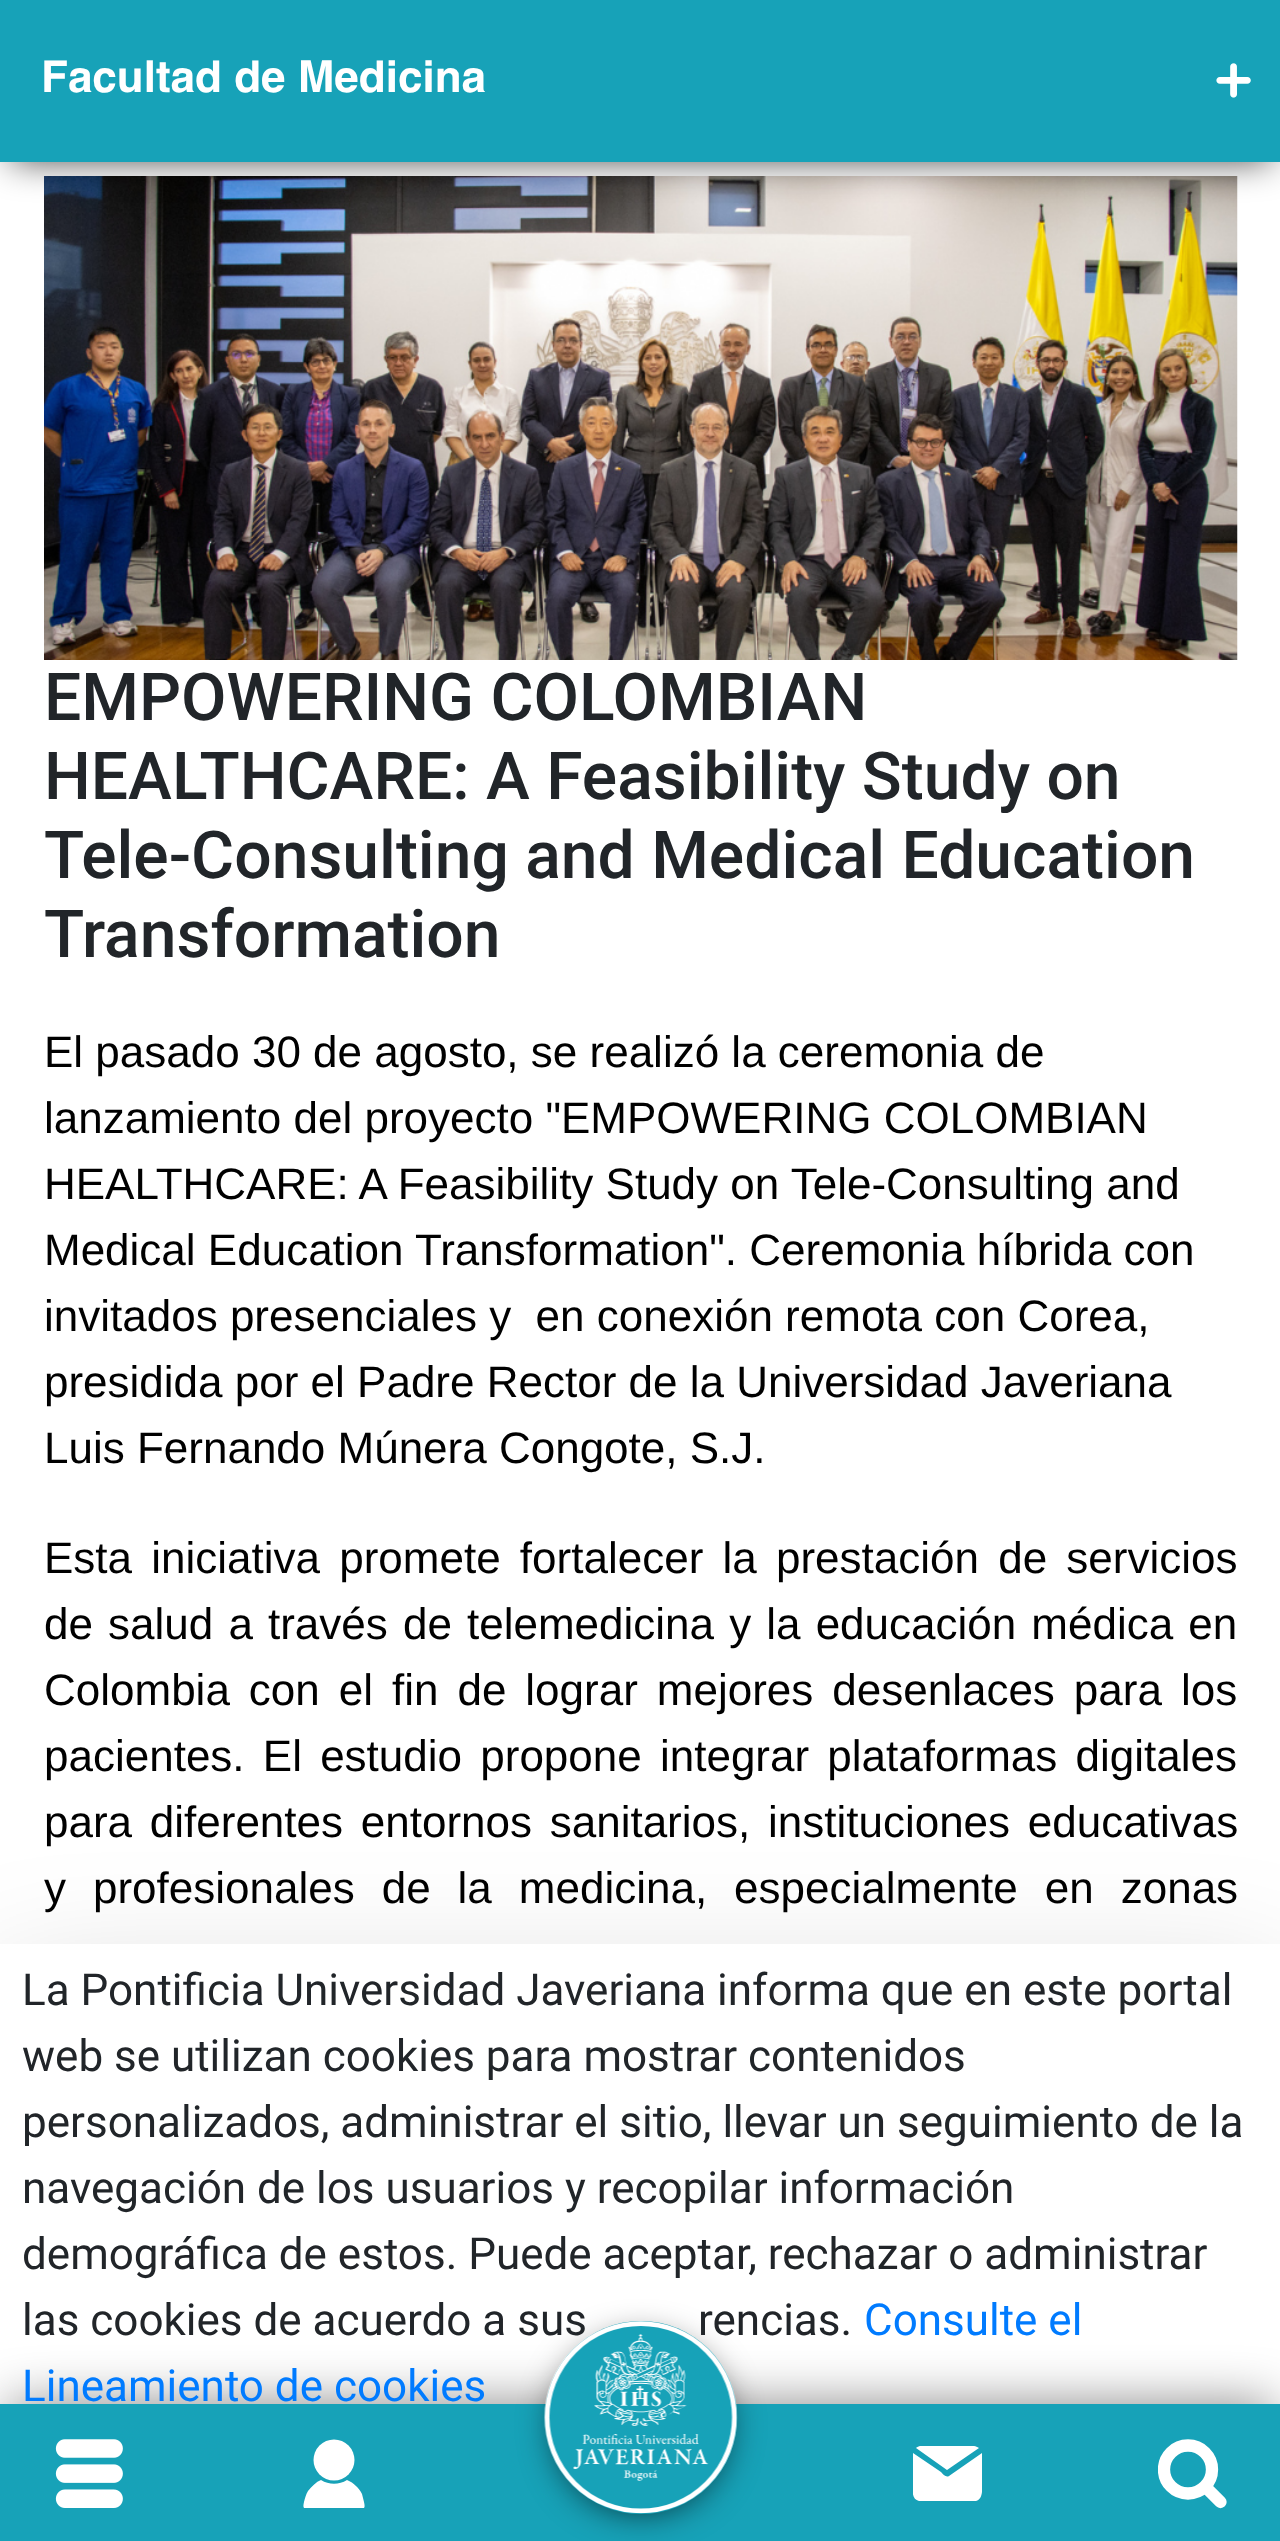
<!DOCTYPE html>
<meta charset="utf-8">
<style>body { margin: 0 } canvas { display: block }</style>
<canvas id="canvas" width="1280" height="2541"></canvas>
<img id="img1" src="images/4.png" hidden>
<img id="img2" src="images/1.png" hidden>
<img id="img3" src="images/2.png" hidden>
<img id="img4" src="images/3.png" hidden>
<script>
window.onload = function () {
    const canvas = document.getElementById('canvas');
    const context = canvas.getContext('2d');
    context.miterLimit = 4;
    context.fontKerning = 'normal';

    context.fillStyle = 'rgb(255, 255, 255)';
    context.fillRect(0, 0, 1280, 2541);
    context.drawImage(document.getElementById('img1'), 44, 176, 1194, 484);
    context.fillStyle = 'rgba(0, 0, 0, 0.75)';
    context.filter = 'blur(18px)';
    context.beginPath();
    context.rect(11, 19, 1260, 141);
    context.fill();
    context.filter = 'none';
    context.fillStyle = 'rgb(23, 162, 184)';
    context.fillRect(0, 0, 1280, 162);
    context.drawImage(document.getElementById('img2'), 1216, 63, 35, 35);
    context.fillStyle = 'rgba(0, 0, 0, 0.18)';
    context.filter = 'blur(66px)';
    context.beginPath();
    context.rect(0, 1988, 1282, 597);
    context.fill();
    context.filter = 'none';
    context.fillStyle = 'rgb(255, 255, 255)';
    context.fillRect(0, 1944, 1280, 460);
    context.fillStyle = 'rgba(0, 0, 0, 0.47)';
    context.filter = 'blur(26px)';
    context.beginPath();
    context.rect(8, 2404, 1265, 121);
    context.fill();
    context.filter = 'none';
    context.fillStyle = 'rgb(23, 162, 184)';
    context.fillRect(0, 2404, 1280, 137);
    context.drawImage(document.getElementById('img3'), 55, 2439, 68, 69);
    context.save();
    context.beginPath();
    context.rect(300, 2439, 69, 69);
    context.clip();
    context.fillStyle = 'rgb(255, 255, 255)';
    context.beginPath();
    context.moveTo(347, 2480);
    context.bezierCurveTo(339, 2485, 329, 2485, 321, 2480);
    context.bezierCurveTo(316, 2482, 312, 2486, 308, 2491);
    context.bezierCurveTo(306, 2494, 305, 2498, 304, 2502);
    context.bezierCurveTo(302, 2511, 305, 2508, 315, 2508);
    context.lineTo(354, 2508);
    context.bezierCurveTo(363, 2508, 366, 2511, 364, 2502);
    context.lineTo(362, 2494);
    context.bezierCurveTo(359, 2488, 354, 2483, 347, 2480);
    context.closePath();
    context.fill();
    context.restore();
    context.fillStyle = 'rgb(255, 255, 255)';
    context.beginPath();
    context.arc(334, 2460, 20.5, 0, 2 * Math.PI);
    context.fill();
    context.fillStyle = 'rgba(0, 0, 0, 0.75)';
    context.filter = 'blur(18px)';
    context.beginPath();
    context.roundRect(556, 2340, 170, 171, 85);
    context.fill();
    context.filter = 'none';
    context.fillStyle = 'rgb(255, 255, 255)';
    context.beginPath();
    context.moveTo(947, 2470);
    context.lineTo(979, 2448);
    context.bezierCurveTo(977, 2447, 976, 2446, 974, 2446);
    context.lineTo(920, 2446);
    context.bezierCurveTo(919, 2446, 917, 2447, 916, 2448);
    context.closePath();
    context.fill();
    context.save();
    context.beginPath();
    context.rect(913, 2439, 69, 69);
    context.clip();
    context.beginPath();
    context.moveTo(949, 2476);
    context.bezierCurveTo(946, 2478, 943, 2474, 941, 2472);
    context.lineTo(913, 2453);
    context.lineTo(913, 2480);
    context.bezierCurveTo(913, 2486, 910, 2499, 919, 2501);
    context.lineTo(976, 2501);
    context.bezierCurveTo(984, 2499, 982, 2486, 982, 2480);
    context.lineTo(982, 2453);
    context.closePath();
    context.fill();
    context.restore();
    context.save();
    context.beginPath();
    context.rect(1158, 2439, 69, 69);
    context.clip();
    context.beginPath();
    context.arc(1188, 2469.5, 24, 0, 2 * Math.PI);
    context.strokeStyle = 'rgb(255, 255, 255)';
    context.lineWidth = 12.3;
    context.stroke();
    context.restore();
    context.beginPath();
    context.moveTo(1220.5, 2502);
    context.lineTo(1207, 2488.5);
    context.strokeStyle = 'rgb(255, 255, 255)';
    context.lineWidth = 12.3;
    context.lineCap = 'round';
    context.lineJoin = 'round';
    context.stroke();
    context.font = 'bold 44px Helvetica';
    context.fillText('Facultad de Medicina', 41, 92);
    context.font = '500 66px Roboto';
    context.fillStyle = 'rgb(33, 37, 41)';
    context.fillText('EMPOWERING COLOMBIAN', 44, 720);
    context.fillText('HEALTHCARE: A Feasibility Study on', 44, 799);
    context.fillText('Tele-Consulting and Medical Education', 44, 878);
    context.fillText('Transformation', 44, 957);
    context.font = '44px Liberation Sans';
    context.fillStyle = 'rgb(0, 0, 0)';
    context.fillText('El pasado 30 de agosto, se realizó la ceremonia de', 44, 1067);
    context.fillText('lanzamiento del proyecto "EMPOWERING COLOMBIAN', 44, 1133);
    context.fillText('HEALTHCARE: A Feasibility Study on Tele-Consulting and', 44, 1199);
    context.fillText('Medical Education Transformation". Ceremonia híbrida con', 44, 1265);
    context.fillText('invitados presenciales y  en conexión remota con Corea,', 44, 1331);
    context.fillText('presidida por el Padre Rector de la Universidad Javeriana', 44, 1397);
    context.fillText('Luis Fernando Múnera Congote, S.J.', 44, 1463);
    context.wordSpacing = '7px';
    context.fillText('Esta iniciativa promete fortalecer la prestación de servicios', 44, 1573);
    context.wordSpacing = '2.9px';
    context.fillText('de salud a través de telemedicina y la educación médica en', 44, 1639);
    context.wordSpacing = '6.75px';
    context.fillText('Colombia con el fin de lograr mejores desenlaces para los', 44, 1705);
    context.wordSpacing = '6px';
    context.fillText('pacientes. El estudio propone integrar plataformas digitales', 44, 1771);
    context.wordSpacing = '5.5px';
    context.fillText('para diferentes entornos sanitarios, instituciones educativas', 44, 1837);
    context.wordSpacing = '14.75px';
    context.fillText('y profesionales de la medicina, especialmente en zonas', 44, 1903);
    context.wordSpacing = '0px';
    context.font = '44px Roboto';
    context.fillStyle = 'rgb(33, 37, 41)';
    context.fillText('La Pontificia Universidad Javeriana informa que en este portal', 22, 2005);
    context.fillText('web se utilizan cookies para mostrar contenidos', 22, 2071);
    context.fillText('personalizados, administrar el sitio, llevar un seguimiento de la', 22, 2137);
    context.fillText('navegación de los usuarios y recopilar información', 22, 2203);
    context.fillText('demográfica de estos. Puede aceptar, rechazar o administrar', 22, 2269);
    context.fillText('las cookies de acuerdo a sus', 22, 2335);
    context.fillText('rencias.', 698, 2335);
    context.fillStyle = 'rgb(23, 162, 184)';
    context.beginPath();
    context.roundRect(545, 2321, 192, 193, 96);
    context.fill();
    context.drawImage(document.getElementById('img4'), 544, 2321, 194, 193);
    context.fillStyle = 'rgb(0, 123, 255)';
    context.fillText('Consulte el', 864, 2335);
    context.fillText('Lineamiento de cookies', 22, 2401);
};
</script>
